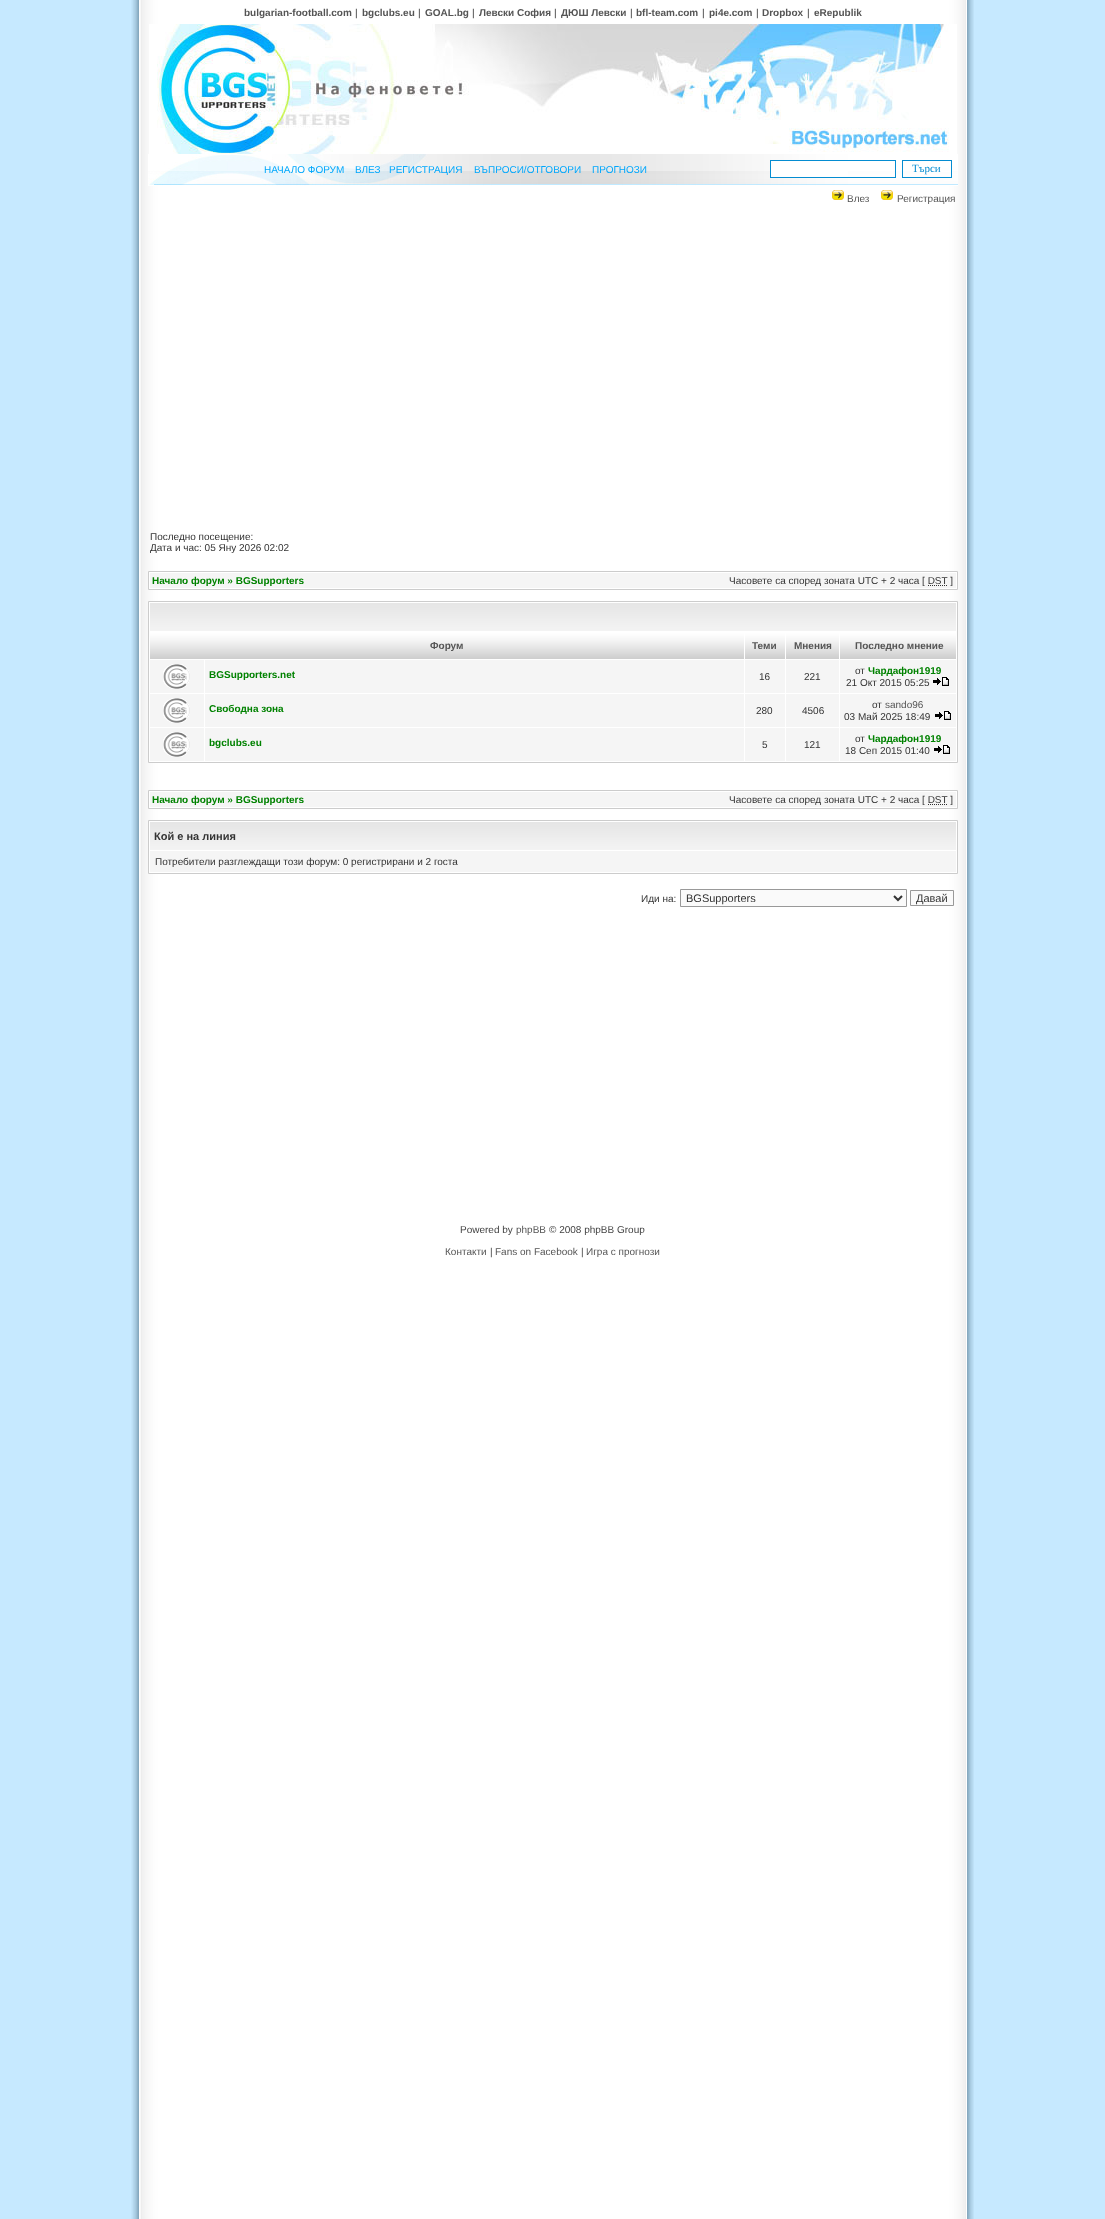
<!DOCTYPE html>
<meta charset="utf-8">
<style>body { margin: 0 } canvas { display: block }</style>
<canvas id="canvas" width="1105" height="2219"></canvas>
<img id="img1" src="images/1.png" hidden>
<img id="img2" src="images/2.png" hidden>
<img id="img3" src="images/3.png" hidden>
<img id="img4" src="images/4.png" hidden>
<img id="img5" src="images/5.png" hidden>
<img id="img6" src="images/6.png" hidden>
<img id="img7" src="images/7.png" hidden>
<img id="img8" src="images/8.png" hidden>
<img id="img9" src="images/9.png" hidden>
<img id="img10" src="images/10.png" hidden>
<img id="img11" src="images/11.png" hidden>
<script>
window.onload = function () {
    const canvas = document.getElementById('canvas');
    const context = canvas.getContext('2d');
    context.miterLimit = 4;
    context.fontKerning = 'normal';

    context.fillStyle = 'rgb(198, 233, 255)';
    context.fillRect(0, 0, 1105, 2219);
    context.drawImage(document.getElementById('img1'), 131, 0, 843, 2219);
    context.drawImage(document.getElementById('img2'), 149, 24, 808, 130);
    context.drawImage(document.getElementById('img3'), 148, 154, 810, 32);
    context.fillStyle = 'rgb(255, 255, 255)';
    context.fillRect(771, 161, 77, 16);
    context.strokeStyle = 'rgb(4, 140, 209)';
    context.strokeRect(770.5, 160.5, 125, 17);
    context.fillRect(921, 171, 30, 1);
    context.strokeRect(902.5, 160.5, 49, 17);
    context.drawImage(document.getElementById('img4'), 832, 190, 12, 10);
    context.drawImage(document.getElementById('img4'), 881, 190, 12, 10);
    context.beginPath();
    context.rect(148.5, 571.5, 809, 18);
    context.fill();
    context.strokeStyle = 'rgb(204, 204, 204)';
    context.stroke();
    context.fillStyle = 'rgb(245, 245, 245)';
    context.fillRect(150, 573, 806, 15);
    context.beginPath();
    context.moveTo(928, 585.5);
    context.lineTo(948, 585.5);
    context.strokeStyle = 'rgb(51, 51, 51)';
    context.setLineDash([1, 1]);
    context.stroke();
    context.fillStyle = 'rgb(255, 255, 255)';
    context.beginPath();
    context.rect(148.5, 601.5, 809, 161);
    context.fill();
    context.strokeStyle = 'rgb(204, 204, 204)';
    context.setLineDash([]);
    context.stroke();
    context.drawImage(document.getElementById('img5'), 150, 603, 806, 28);
    context.drawImage(document.getElementById('img6'), 150, 632, 594, 27);
    context.drawImage(document.getElementById('img7'), 745, 632, 40, 27);
    context.drawImage(document.getElementById('img8'), 786, 632, 53, 27);
    context.drawImage(document.getElementById('img9'), 840, 632, 116, 27);
    context.fillStyle = 'rgb(245, 245, 245)';
    context.fillRect(150, 660, 54, 33);
    context.drawImage(document.getElementById('img10'), 163, 664, 27, 25);
    context.fillRect(205, 660, 539, 33);
    context.fillRect(745, 660, 40, 33);
    context.fillRect(786, 660, 53, 33);
    context.fillRect(840, 660, 116, 33);
    context.drawImage(document.getElementById('img11'), 933, 677, 16, 9);
    context.fillRect(150, 694, 54, 33);
    context.drawImage(document.getElementById('img10'), 163, 698, 27, 25);
    context.fillRect(205, 694, 539, 33);
    context.fillRect(745, 694, 40, 33);
    context.fillRect(786, 694, 53, 33);
    context.fillRect(840, 694, 116, 33);
    context.drawImage(document.getElementById('img11'), 935, 711, 16, 9);
    context.fillRect(150, 728, 54, 33);
    context.drawImage(document.getElementById('img10'), 163, 732, 27, 25);
    context.fillRect(205, 728, 539, 33);
    context.fillRect(745, 728, 40, 33);
    context.fillRect(786, 728, 53, 33);
    context.fillRect(840, 728, 116, 33);
    context.drawImage(document.getElementById('img11'), 934, 745, 16, 9);
    context.fillStyle = 'rgb(255, 255, 255)';
    context.beginPath();
    context.rect(148.5, 790.5, 809, 18);
    context.fill();
    context.stroke();
    context.fillStyle = 'rgb(245, 245, 245)';
    context.fillRect(150, 792, 806, 15);
    context.beginPath();
    context.moveTo(928, 804.5);
    context.lineTo(948, 804.5);
    context.strokeStyle = 'rgb(51, 51, 51)';
    context.setLineDash([1, 1]);
    context.stroke();
    context.fillStyle = 'rgb(255, 255, 255)';
    context.beginPath();
    context.rect(148.5, 820.5, 809, 53);
    context.fill();
    context.strokeStyle = 'rgb(204, 204, 204)';
    context.setLineDash([]);
    context.stroke();
    context.drawImage(document.getElementById('img5'), 150, 822, 806, 28);
    context.fillStyle = 'rgb(245, 245, 245)';
    context.fillRect(150, 851, 806, 21);
    context.fillStyle = 'rgb(250, 250, 250)';
    context.beginPath();
    context.rect(680.5, 889.5, 226, 17);
    context.fill();
    context.strokeStyle = 'rgb(153, 153, 153)';
    context.stroke();
    context.beginPath();
    context.moveTo(894, 896);
    context.lineTo(898, 900);
    context.lineTo(902, 896);
    context.strokeStyle = 'rgb(51, 51, 51)';
    context.lineWidth = 2;
    context.stroke();
    context.beginPath();
    context.rect(910.5, 890.5, 43, 15);
    context.fill();
    context.strokeStyle = 'rgb(153, 153, 153)';
    context.lineWidth = 1;
    context.stroke();
    context.font = 'bold 10px Liberation Sans';
    context.fillStyle = 'rgb(85, 85, 85)';
    context.fillText('bulgarian-football.com', 244, 16);
    context.font = '10px Liberation Sans';
    context.fillStyle = 'rgb(51, 51, 51)';
    context.fillText('|', 355, 16);
    context.font = 'bold 10px Liberation Sans';
    context.fillStyle = 'rgb(85, 85, 85)';
    context.fillText('bgclubs.eu', 362, 16);
    context.font = '10px Liberation Sans';
    context.fillStyle = 'rgb(51, 51, 51)';
    context.fillText('|', 418, 16);
    context.font = 'bold 10px Liberation Sans';
    context.fillStyle = 'rgb(85, 85, 85)';
    context.fillText('GOAL.bg', 425, 16);
    context.font = '10px Liberation Sans';
    context.fillStyle = 'rgb(51, 51, 51)';
    context.fillText('|', 472, 16);
    context.font = 'bold 10px Liberation Sans';
    context.fillStyle = 'rgb(85, 85, 85)';
    context.fillText('Левски София', 479, 16);
    context.font = '10px Liberation Sans';
    context.fillStyle = 'rgb(51, 51, 51)';
    context.fillText('|', 554, 16);
    context.font = 'bold 10px Liberation Sans';
    context.fillStyle = 'rgb(85, 85, 85)';
    context.fillText('ДЮШ Левски', 561, 16);
    context.font = '10px Liberation Sans';
    context.fillStyle = 'rgb(51, 51, 51)';
    context.fillText('|', 630, 16);
    context.font = 'bold 10px Liberation Sans';
    context.fillStyle = 'rgb(85, 85, 85)';
    context.fillText('bfl-team.com', 636, 16);
    context.font = '10px Liberation Sans';
    context.fillStyle = 'rgb(51, 51, 51)';
    context.fillText('|', 702, 16);
    context.font = 'bold 10px Liberation Sans';
    context.fillStyle = 'rgb(85, 85, 85)';
    context.fillText('pi4e.com', 709, 16);
    context.font = '10px Liberation Sans';
    context.fillStyle = 'rgb(51, 51, 51)';
    context.fillText('|', 756, 16);
    context.font = 'bold 10px Liberation Sans';
    context.fillStyle = 'rgb(85, 85, 85)';
    context.fillText('Dropbox', 762, 16);
    context.font = '10px Liberation Sans';
    context.fillStyle = 'rgb(51, 51, 51)';
    context.fillText('|', 807, 16);
    context.font = 'bold 10px Liberation Sans';
    context.fillStyle = 'rgb(85, 85, 85)';
    context.fillText('eRepublik', 814, 16);
    context.font = '10px Liberation Sans';
    context.fillStyle = 'rgb(0, 167, 252)';
    context.fillText('НАЧАЛО ФОРУМ', 264, 173);
    context.fillText('ВЛЕЗ', 355, 173);
    context.fillText('РЕГИСТРАЦИЯ', 389, 173);
    context.fillText('ВЪПРОСИ/ОТГОВОРИ', 474, 173);
    context.fillText('ПРОГНОЗИ', 592, 173);
    context.font = '11px Liberation Serif';
    context.fillStyle = 'rgb(4, 140, 209)';
    context.fillText('Търси', 912, 172);
    context.font = '10px Liberation Sans';
    context.fillStyle = 'rgb(85, 85, 85)';
    context.fillText('Влез', 847, 202);
    context.fillText('Регистрация', 897, 202);
    context.fillStyle = 'rgb(51, 51, 51)';
    context.fillText('Последно посещение:', 150, 540);
    context.fillText('Дата и час: 05 Яну 2026 02:02', 150, 551);
    context.font = 'bold 10px Liberation Sans';
    context.fillStyle = 'rgb(0, 130, 0)';
    context.fillText('Начало форум » BGSupporters', 152, 584);
    context.font = '10px Liberation Sans';
    context.fillStyle = 'rgb(51, 51, 51)';
    context.fillText('Часовете са според зоната UTC + 2 часа [ DST ]', 729, 584);
    context.font = 'bold 10px Liberation Sans';
    context.fillStyle = 'rgb(85, 85, 85)';
    context.fillText('Форум', 430, 649);
    context.fillText('Теми', 752, 649);
    context.fillText('Мнения', 794, 649);
    context.fillText('Последно мнение', 855, 649);
    context.fillStyle = 'rgb(0, 130, 0)';
    context.fillText('BGSupporters.net', 209, 678);
    context.font = '10px Liberation Sans';
    context.fillStyle = 'rgb(51, 51, 51)';
    context.fillText('16', 759, 680);
    context.fillText('221', 804, 680);
    context.fillText('от', 855, 674);
    context.font = 'bold 10px Liberation Sans';
    context.fillStyle = 'rgb(0, 130, 0)';
    context.fillText('Чардафон1919', 868, 674);
    context.font = '10px Liberation Sans';
    context.fillStyle = 'rgb(51, 51, 51)';
    context.fillText('21 Окт 2015 05:25', 846, 686);
    context.font = 'bold 10px Liberation Sans';
    context.fillStyle = 'rgb(0, 130, 0)';
    context.fillText('Свободна зона', 209, 712);
    context.font = '10px Liberation Sans';
    context.fillStyle = 'rgb(51, 51, 51)';
    context.fillText('280', 756, 714);
    context.fillText('4506', 802, 714);
    context.fillText('от', 872, 708);
    context.fillStyle = 'rgb(85, 85, 85)';
    context.fillText('sando96', 885, 708);
    context.fillStyle = 'rgb(51, 51, 51)';
    context.fillText('03 Май 2025 18:49', 844, 720);
    context.font = 'bold 10px Liberation Sans';
    context.fillStyle = 'rgb(0, 130, 0)';
    context.fillText('bgclubs.eu', 209, 746);
    context.font = '10px Liberation Sans';
    context.fillStyle = 'rgb(51, 51, 51)';
    context.fillText('5', 762, 748);
    context.fillText('121', 804, 748);
    context.fillText('от', 855, 742);
    context.font = 'bold 10px Liberation Sans';
    context.fillStyle = 'rgb(0, 130, 0)';
    context.fillText('Чардафон1919', 868, 742);
    context.font = '10px Liberation Sans';
    context.fillStyle = 'rgb(51, 51, 51)';
    context.fillText('18 Сеп 2015 01:40', 845, 754);
    context.font = 'bold 10px Liberation Sans';
    context.fillStyle = 'rgb(0, 130, 0)';
    context.fillText('Начало форум » BGSupporters', 152, 803);
    context.font = '10px Liberation Sans';
    context.fillStyle = 'rgb(51, 51, 51)';
    context.fillText('Часовете са според зоната UTC + 2 часа [ DST ]', 729, 803);
    context.font = 'bold 11px Liberation Sans';
    context.fillText('Кой е на линия', 154, 840);
    context.font = '10px Liberation Sans';
    context.fillText('Потребители разглеждащи този форум: 0 регистрирани и 2 госта', 155, 865);
    context.fillText('Иди на:', 641, 902);
    context.font = '11px Liberation Sans';
    context.fillText('BGSupporters', 686, 902);
    context.fillText('Давай', 916, 902);
    context.font = '10px Liberation Sans';
    context.fillStyle = 'rgb(68, 68, 68)';
    context.fillText('Powered by', 460, 1233);
    context.fillStyle = 'rgb(85, 85, 85)';
    context.fillText('phpBB', 516, 1233);
    context.fillStyle = 'rgb(68, 68, 68)';
    context.fillText('© 2008 phpBB Group', 549, 1233);
    context.fillStyle = 'rgb(85, 85, 85)';
    context.fillText('Контакти', 445, 1255);
    context.fillStyle = 'rgb(68, 68, 68)';
    context.fillText('|', 490, 1255);
    context.fillStyle = 'rgb(85, 85, 85)';
    context.fillText('Fans on Facebook', 495, 1255);
    context.fillStyle = 'rgb(68, 68, 68)';
    context.fillText('|', 581, 1255);
    context.fillStyle = 'rgb(85, 85, 85)';
    context.fillText('Игра с прогнози', 586, 1255);
};
</script>
